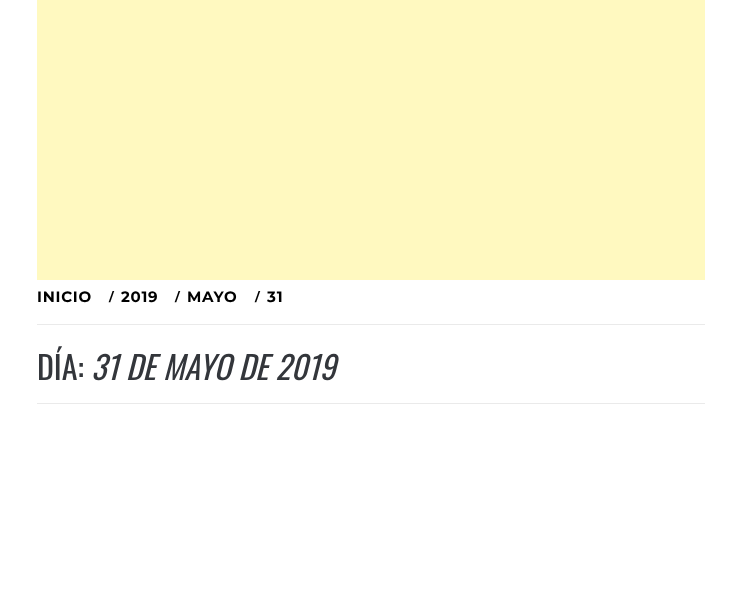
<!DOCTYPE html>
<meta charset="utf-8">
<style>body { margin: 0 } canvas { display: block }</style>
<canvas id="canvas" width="742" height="615"></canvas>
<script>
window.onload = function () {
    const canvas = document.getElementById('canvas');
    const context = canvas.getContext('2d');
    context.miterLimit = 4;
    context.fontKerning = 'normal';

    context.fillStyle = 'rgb(255, 255, 255)';
    context.fillRect(0, 0, 742, 615);
    context.fillStyle = 'rgb(255, 249, 192)';
    context.fillRect(37, 0, 668, 280);
    context.fillStyle = 'rgb(234, 234, 234)';
    context.fillRect(37, 403, 668, 1);
    context.fillRect(37, 324, 668, 1);
    context.letterSpacing = '0.75px';
    context.font = 'bold 15px Montserrat';
    context.fillStyle = 'rgb(0, 0, 0)';
    context.fillText('INICIO', 37, 302);
    context.font = 'bold 12px Montserrat';
    context.fillText('/', 109, 301);
    context.font = 'bold 15px Montserrat';
    context.fillText('2019', 121, 302);
    context.font = 'bold 12px Montserrat';
    context.fillText('/', 175, 301);
    context.font = 'bold 15px Montserrat';
    context.fillText('MAYO', 187, 302);
    context.font = 'bold 12px Montserrat';
    context.fillText('/', 255, 301);
    context.font = 'bold 15px Montserrat';
    context.fillText('31', 267, 302);
    context.letterSpacing = '0px';
    context.font = '32px Oswald';
    context.fillStyle = 'rgb(51, 54, 59)';
    context.fillText('DÍA:', 37, 380);
    context.font = 'italic 32px Oswald';
    context.fillText('31 DE MAYO DE 2019', 91, 380);
};
</script>
